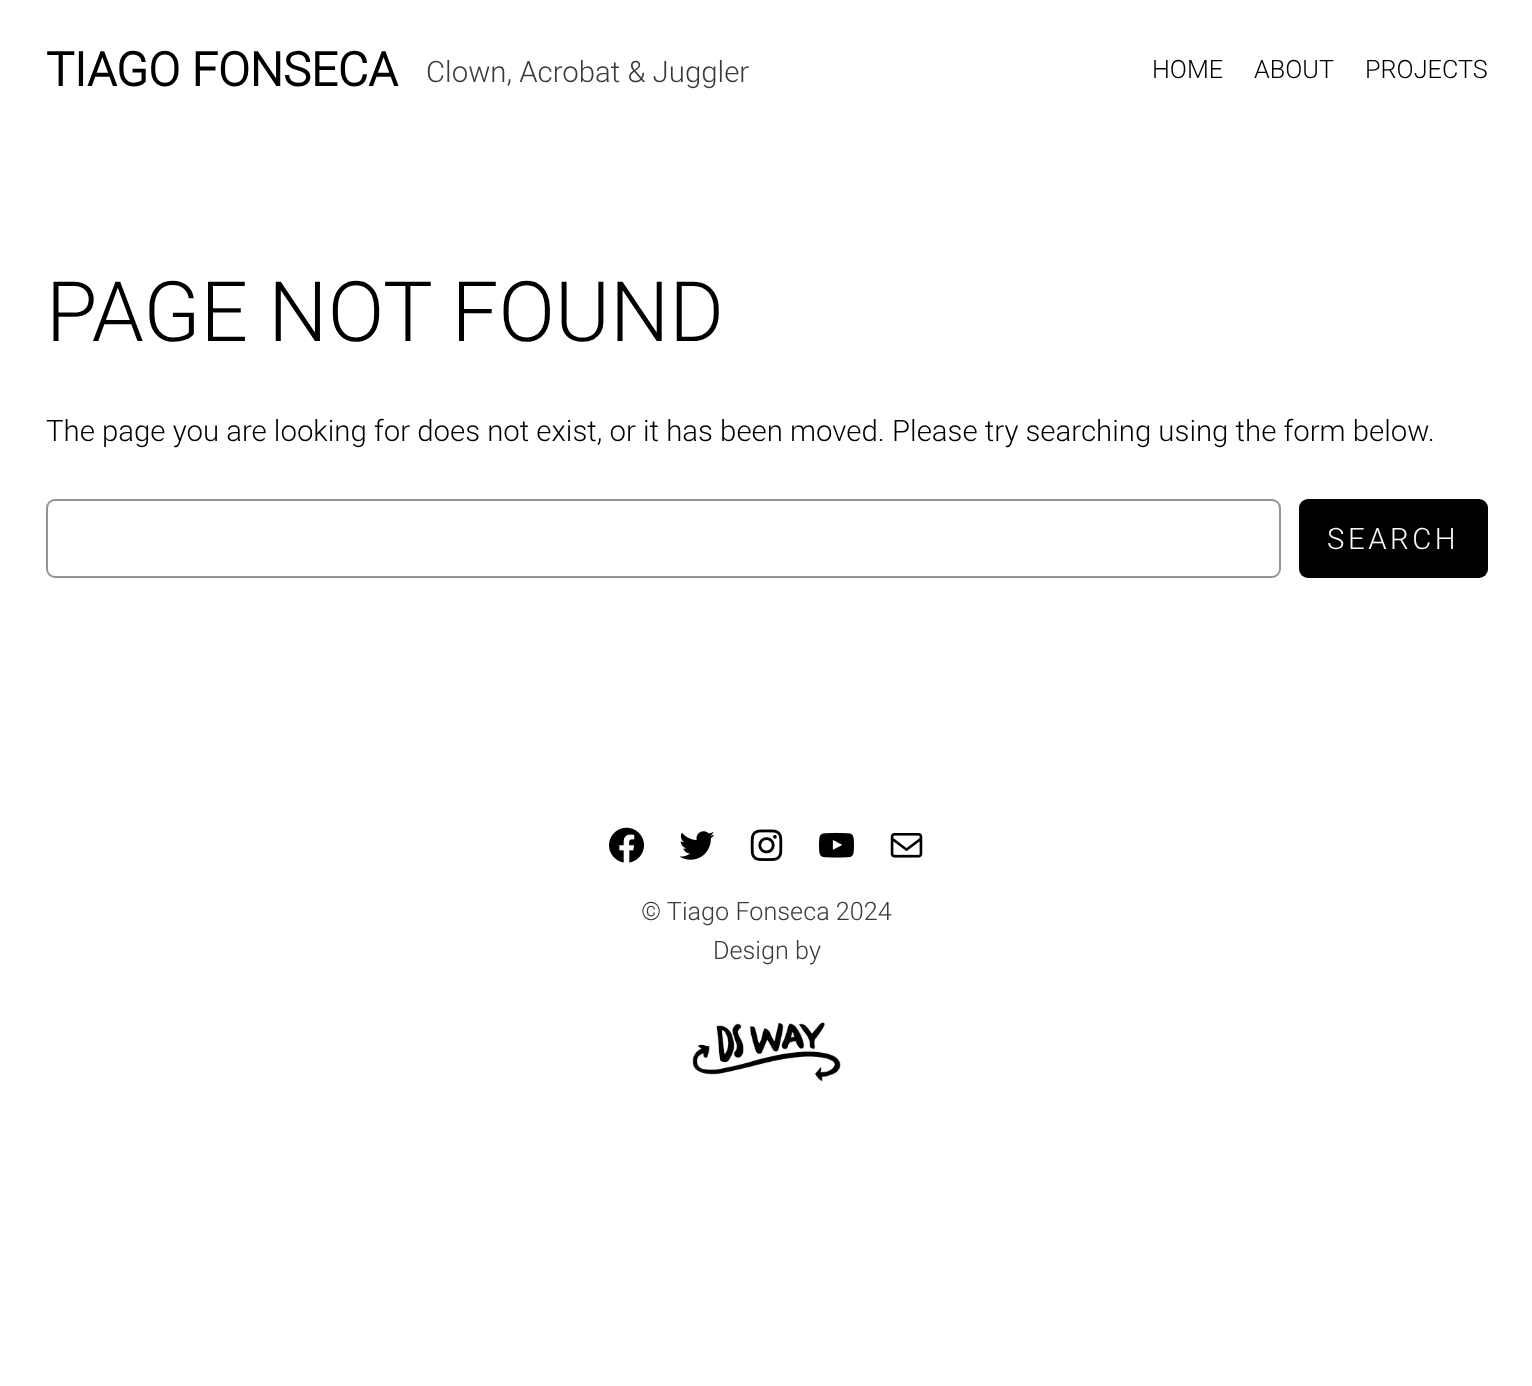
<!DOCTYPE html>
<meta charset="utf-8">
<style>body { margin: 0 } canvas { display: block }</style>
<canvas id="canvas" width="1532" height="1386"></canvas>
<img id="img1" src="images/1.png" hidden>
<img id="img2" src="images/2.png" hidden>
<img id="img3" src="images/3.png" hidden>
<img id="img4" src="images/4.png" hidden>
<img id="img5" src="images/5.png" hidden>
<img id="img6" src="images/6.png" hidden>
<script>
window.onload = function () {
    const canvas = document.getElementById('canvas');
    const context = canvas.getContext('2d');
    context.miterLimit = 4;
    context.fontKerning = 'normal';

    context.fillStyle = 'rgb(255, 255, 255)';
    context.fillRect(0, 0, 1532, 1386);
    context.beginPath();
    context.roundRect(47, 500, 1233, 77, 8);
    context.strokeStyle = 'rgb(148, 148, 148)';
    context.lineWidth = 2;
    context.stroke();
    context.fillStyle = 'rgb(0, 0, 0)';
    context.beginPath();
    context.roundRect(1299, 499, 189, 79, 9);
    context.fill();
    context.drawImage(document.getElementById('img1'), 609, 827, 35, 36);
    context.drawImage(document.getElementById('img2'), 679, 831, 36, 29);
    context.drawImage(document.getElementById('img3'), 750, 829, 33, 32);
    context.drawImage(document.getElementById('img4'), 819, 832, 35, 26);
    context.drawImage(document.getElementById('img5'), 890, 833, 33, 25);
    context.drawImage(document.getElementById('img6'), 692, 1022, 149, 60);
    context.font = 'bold 47px Roboto';
    context.fillText('TIAGO FONSECA', 46, 86);
    context.font = '300 29.4px Roboto';
    context.fillStyle = 'rgb(58, 58, 58)';
    context.fillText('Clown, Acrobat & Juggler', 426, 82);
    context.font = '300 25.25px Roboto';
    context.fillStyle = 'rgb(0, 0, 0)';
    context.fillText('HOME', 1152, 78);
    context.fillText('ABOUT', 1254, 78);
    context.fillText('PROJECTS', 1365, 78);
    context.font = '300 83.5px Roboto';
    context.fillText('PAGE NOT FOUND', 46, 341);
    context.font = '300 29.4px Roboto';
    context.fillText('The page you are looking for does not exist, or it has been moved. Please try searching using the form below.', 46, 441);
    context.letterSpacing = '3.5px';
    context.fillStyle = 'rgb(249, 249, 249)';
    context.fillText('SEARCH', 1327, 549);
    context.letterSpacing = '0px';
    context.font = '300 25.25px Roboto';
    context.fillStyle = 'rgb(58, 58, 58)';
    context.fillText('© Tiago Fonseca 2024', 641, 920);
    context.fillText('Design by', 713, 959);
};
</script>
